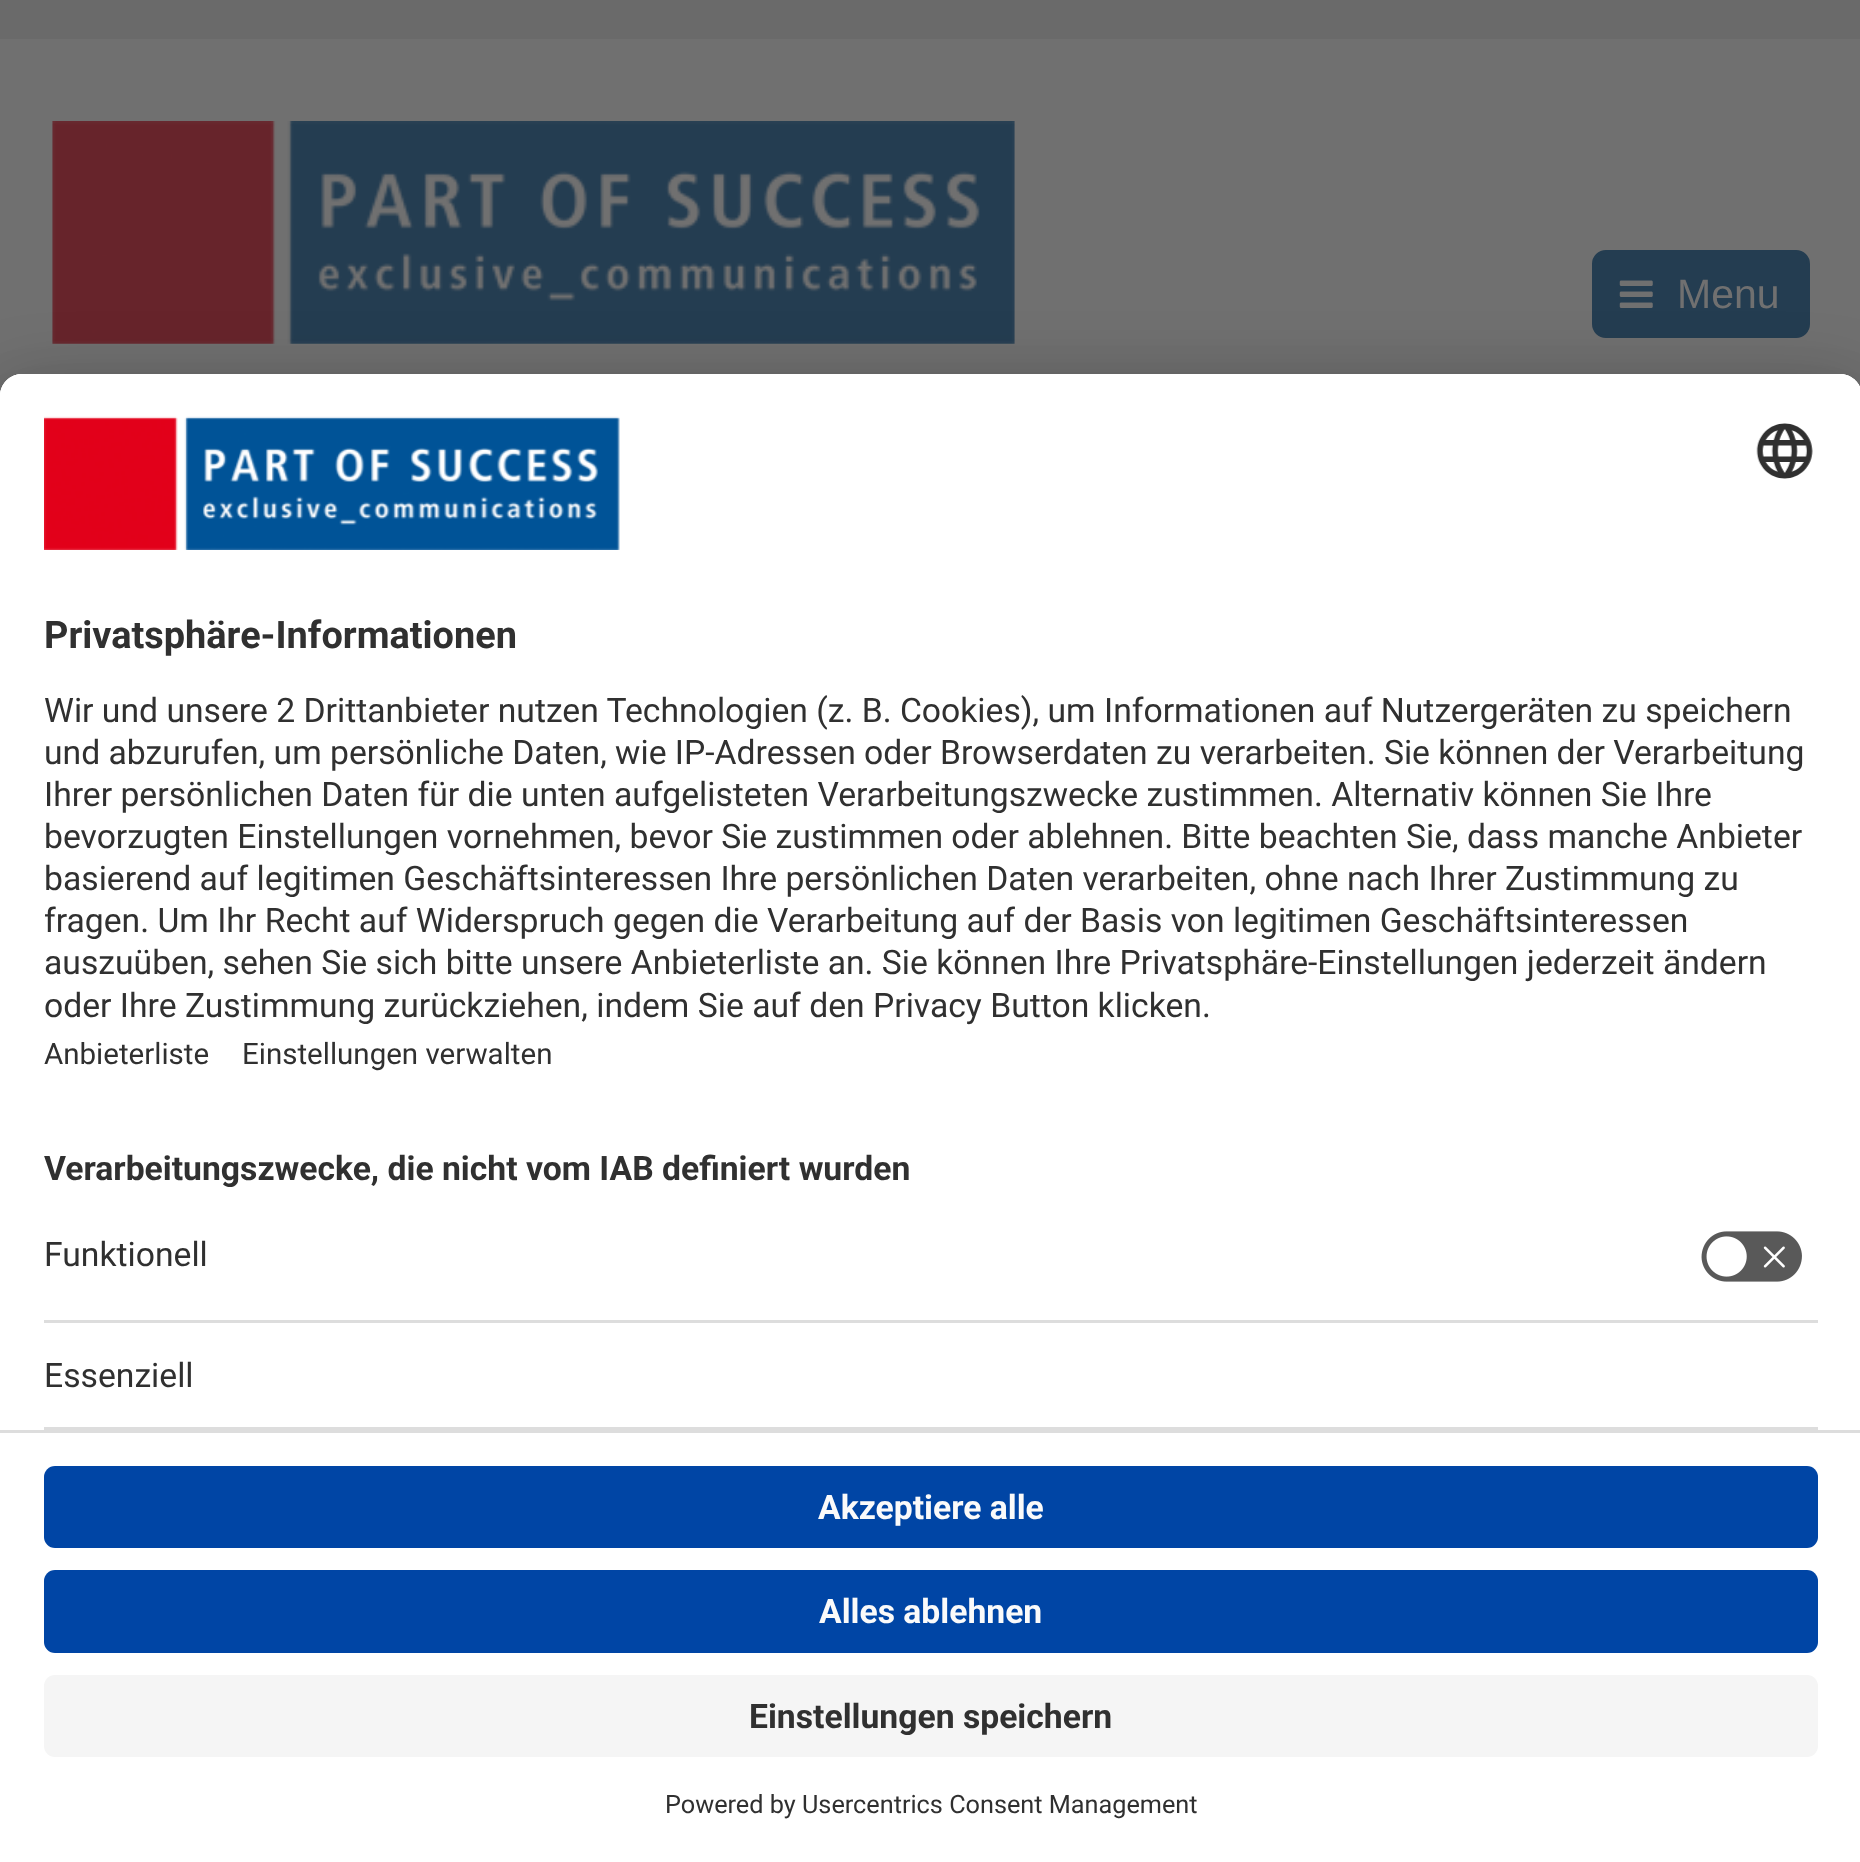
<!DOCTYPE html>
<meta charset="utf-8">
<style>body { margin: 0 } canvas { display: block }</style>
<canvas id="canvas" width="1860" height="1862"></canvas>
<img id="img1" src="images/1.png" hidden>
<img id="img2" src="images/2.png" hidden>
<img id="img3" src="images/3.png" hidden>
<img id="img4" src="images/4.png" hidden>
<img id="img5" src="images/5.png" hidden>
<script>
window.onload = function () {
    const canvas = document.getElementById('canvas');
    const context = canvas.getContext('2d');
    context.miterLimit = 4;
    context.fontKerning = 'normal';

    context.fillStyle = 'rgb(106, 106, 106)';
    context.fillRect(0, 0, 1860, 1862);
    context.fillStyle = 'rgb(112, 112, 112)';
    context.fillRect(0, 39, 1860, 357);
    context.drawImage(document.getElementById('img1'), 52, 121, 963, 223);
    context.fillStyle = 'rgb(36, 61, 81)';
    context.beginPath();
    context.roundRect(1593.5, 251.5, 215, 85, 12.5);
    context.fill();
    context.strokeStyle = 'rgb(36, 61, 81)';
    context.lineWidth = 3;
    context.stroke();
    context.drawImage(document.getElementById('img2'), 1619, 280, 34, 28);
    context.fillStyle = 'rgba(0, 0, 0, 0.3)';
    context.filter = 'blur(38.5px)';
    context.beginPath();
    context.roundRect(0, 429, 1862, 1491, 22);
    context.fill();
    context.filter = 'none';
    context.fillStyle = 'rgba(0, 0, 0, 0.22)';
    context.filter = 'blur(36px)';
    context.beginPath();
    context.roundRect(0, 388, 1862, 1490, 22);
    context.fill();
    context.filter = 'none';
    context.fillStyle = 'rgb(255, 255, 255)';
    context.beginPath();
    context.moveTo(22, 374);
    context.lineTo(1840, 374);
    context.bezierCurveTo(1852, 374, 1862, 384, 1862, 396);
    context.lineTo(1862, 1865);
    context.lineTo(0, 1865);
    context.lineTo(0, 396);
    context.bezierCurveTo(0, 384, 10, 374, 22, 374);
    context.closePath();
    context.fill();
    context.beginPath();
    context.moveTo(22, 374);
    context.lineTo(1840, 374);
    context.bezierCurveTo(1852, 374, 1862, 384, 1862, 396);
    context.lineTo(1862, 1430);
    context.lineTo(0, 1430);
    context.lineTo(0, 396);
    context.bezierCurveTo(0, 384, 10, 374, 22, 374);
    context.closePath();
    context.fill();
    context.beginPath();
    context.moveTo(22, 374);
    context.lineTo(1840, 374);
    context.bezierCurveTo(1852, 374, 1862, 384, 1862, 396);
    context.lineTo(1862, 1117);
    context.lineTo(0, 1117);
    context.lineTo(0, 396);
    context.bezierCurveTo(0, 384, 10, 374, 22, 374);
    context.closePath();
    context.fill();
    context.drawImage(document.getElementById('img3'), 44, 416, 576, 134);
    context.drawImage(document.getElementById('img4'), 1756, 423, 57, 56);
    context.fillStyle = 'rgb(221, 221, 221)';
    context.fillRect(44, 1320, 1774, 3);
    context.drawImage(document.getElementById('img5'), 1701, 1231, 101, 51);
    context.fillRect(44, 1427, 1774, 3);
    context.fillRect(0, 1430, 1860, 3);
    context.fillStyle = 'rgb(0, 69, 165)';
    context.beginPath();
    context.roundRect(44, 1466, 1774, 82, 11);
    context.fill();
    context.beginPath();
    context.roundRect(44, 1570, 1774, 83, 11);
    context.fill();
    context.fillStyle = 'rgb(245, 245, 245)';
    context.beginPath();
    context.roundRect(44, 1675, 1774, 82, 11);
    context.fill();
    context.font = '41px Liberation Sans';
    context.fillStyle = 'rgb(112, 112, 112)';
    context.fillText('Menu', 1677, 308);
    context.font = 'bold 37.9px Roboto';
    context.fillStyle = 'rgb(48, 48, 48)';
    context.fillText('Privatsphäre-Informationen', 44, 648);
    context.font = '33.7px Roboto';
    context.fillText('Wir und unsere 2 Drittanbieter nutzen Technologien (z. B. Cookies), um Informationen auf Nutzergeräten zu speichern', 44, 722);
    context.fillText('und abzurufen, um persönliche Daten, wie IP-Adressen oder Browserdaten zu verarbeiten. Sie können der Verarbeitung', 44, 764);
    context.fillText('Ihrer persönlichen Daten für die unten aufgelisteten Verarbeitungszwecke zustimmen. Alternativ können Sie Ihre', 44, 806);
    context.fillText('bevorzugten Einstellungen vornehmen, bevor Sie zustimmen oder ablehnen. Bitte beachten Sie, dass manche Anbieter', 44, 848);
    context.fillText('basierend auf legitimen Geschäftsinteressen Ihre persönlichen Daten verarbeiten, ohne nach Ihrer Zustimmung zu', 44, 890);
    context.fillText('fragen. Um Ihr Recht auf Widerspruch gegen die Verarbeitung auf der Basis von legitimen Geschäftsinteressen', 44, 932);
    context.fillText('auszuüben, sehen Sie sich bitte unsere Anbieterliste an. Sie können Ihre Privatsphäre-Einstellungen jederzeit ändern', 44, 974);
    context.fillText('oder Ihre Zustimmung zurückziehen, indem Sie auf den Privacy Button klicken.', 44, 1017);
    context.font = '29.5px Roboto';
    context.fillText('Anbieterliste', 44, 1064);
    context.fillText('Einstellungen verwalten', 242, 1064);
    context.font = 'bold 33.7px Roboto';
    context.fillText('Verarbeitungszwecke, die nicht vom IAB definiert wurden', 44, 1180);
    context.font = '33.7px Roboto';
    context.fillText('Funktionell', 44, 1266);
    context.fillText('Essenziell', 44, 1387);
    context.font = 'bold 33.7px Roboto';
    context.fillStyle = 'rgb(250, 250, 250)';
    context.fillText('Akzeptiere alle', 818, 1519);
    context.fillText('Alles ablehnen', 819, 1623);
    context.fillStyle = 'rgb(48, 48, 48)';
    context.fillText('Einstellungen speichern', 749, 1728);
    context.font = '25.25px Roboto';
    context.fillText('Powered by Usercentrics Consent Management', 665, 1813);
};
</script>
